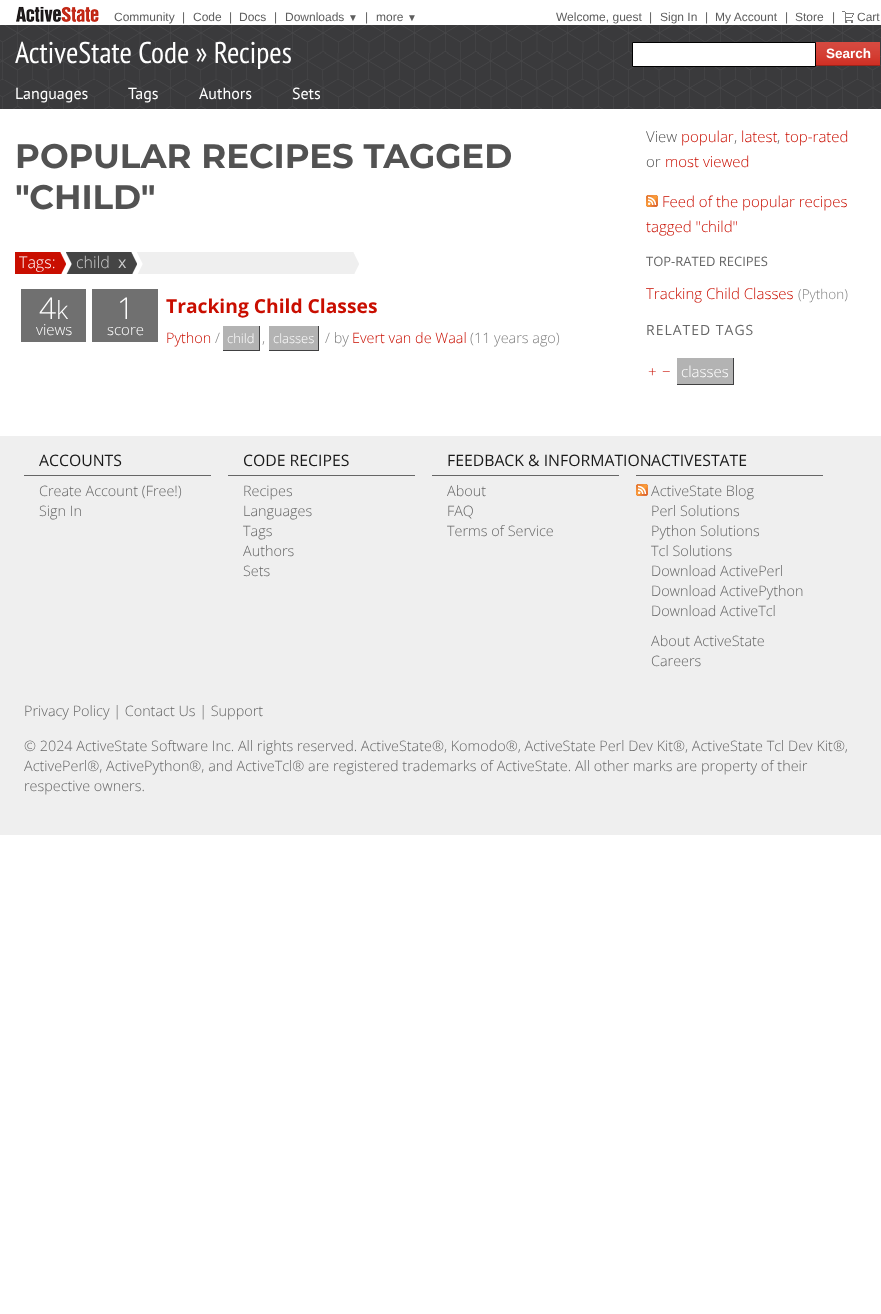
<!DOCTYPE html>
<meta charset="utf-8">
<style>body { margin: 0 } canvas { display: block }</style>
<canvas id="canvas" width="881" height="1314"></canvas>
<img id="img1" src="images/1.png" hidden>
<img id="img2" src="images/2.png" hidden>
<img id="img3" src="images/3.png" hidden>
<img id="img4" src="images/4.png" hidden>
<img id="img5" src="images/5.png" hidden>
<img id="img6" src="images/6.png" hidden>
<img id="img7" src="images/7.png" hidden>
<img id="img8" src="images/8.png" hidden>
<img id="img9" src="images/9.png" hidden>
<img id="img10" src="images/10.png" hidden>
<img id="img11" src="images/11.png" hidden>
<script>
window.onload = function () {
    const canvas = document.getElementById('canvas');
    const context = canvas.getContext('2d');
    context.miterLimit = 4;
    context.fontKerning = 'normal';

    context.fillStyle = 'rgb(255, 255, 255)';
    context.fillRect(0, 0, 881, 1314);
    context.drawImage(document.getElementById('img1'), 0, 25, 881, 84);
    context.drawImage(document.getElementById('img2'), 16, 6, 83, 16);
    context.drawImage(document.getElementById('img3'), 842, 11, 12, 12);
    context.beginPath();
    context.rect(632.5, 42.5, 183, 24);
    context.fill();
    context.strokeStyle = 'rgb(0, 0, 0)';
    context.stroke();
    context.fillStyle = 'rgb(201, 14, 0)';
    context.fillRect(816, 42, 64, 23);
    context.drawImage(document.getElementById('img4'), 816, 42, 64, 23);
    context.fillStyle = 'rgb(156, 35, 26)';
    context.fillRect(816, 65, 64, 1);
    context.fillStyle = 'rgb(201, 14, 0)';
    context.fillRect(15, 252, 51, 22);
    context.drawImage(document.getElementById('img5'), 60, 252, 6, 22);
    context.fillStyle = 'rgb(68, 68, 68)';
    context.fillRect(66, 252, 71, 22);
    context.drawImage(document.getElementById('img6'), 66, 252, 6, 22);
    context.drawImage(document.getElementById('img7'), 131, 252, 6, 22);
    context.fillStyle = 'rgb(239, 239, 239)';
    context.fillRect(137, 252, 222, 22);
    context.drawImage(document.getElementById('img8'), 137, 253, 6, 21);
    context.drawImage(document.getElementById('img9'), 353, 252, 6, 22);
    context.fillStyle = 'rgb(112, 112, 112)';
    context.fillRect(21, 289, 65, 53);
    context.fillRect(92, 289, 66, 53);
    context.fillStyle = 'rgb(179, 179, 179)';
    context.fillRect(223, 326, 36, 24);
    context.fillStyle = 'rgb(64, 64, 65)';
    context.fillRect(259, 326, 1, 25);
    context.fillRect(223, 350, 37, 1);
    context.fillStyle = 'rgb(179, 179, 179)';
    context.fillRect(269, 326, 49, 24);
    context.fillStyle = 'rgb(64, 64, 65)';
    context.fillRect(318, 326, 1, 25);
    context.fillRect(269, 350, 50, 1);
    context.drawImage(document.getElementById('img10'), 646, 195, 12, 12);
    context.fillStyle = 'rgb(179, 179, 179)';
    context.fillRect(677, 358, 56, 26);
    context.fillStyle = 'rgb(64, 64, 65)';
    context.fillRect(733, 358, 1, 27);
    context.fillRect(677, 384, 57, 1);
    context.fillStyle = 'rgb(239, 239, 239)';
    context.fillRect(0, 436, 881, 399);
    context.fillStyle = 'rgb(102, 102, 102)';
    context.fillRect(24, 475, 187, 1);
    context.fillRect(228, 475, 187, 1);
    context.fillRect(432, 475, 187, 1);
    context.fillRect(636, 475, 187, 1);
    context.drawImage(document.getElementById('img11'), 636, 484, 12, 12);
    context.font = '12px Liberation Sans';
    context.fillStyle = 'rgb(94, 94, 94)';
    context.fillText('Community', 114, 21);
    context.fillText('|', 182, 21);
    context.fillText('Code', 193, 21);
    context.fillText('|', 229, 21);
    context.fillText('Docs', 239, 21);
    context.fillText('|', 274, 21);
    context.fillText('Downloads', 285, 21);
    context.font = '10px Liberation Sans';
    context.fillText('▼', 348, 21);
    context.font = '12px Liberation Sans';
    context.fillText('|', 365, 21);
    context.fillText('more', 376, 21);
    context.font = '10px Liberation Sans';
    context.fillText('▼', 407, 21);
    context.font = '12px Liberation Sans';
    context.fillText('Welcome, guest', 556, 21);
    context.fillText('|', 649, 21);
    context.fillText('Sign In', 660, 21);
    context.fillText('|', 705, 21);
    context.fillText('My Account', 715, 21);
    context.fillText('|', 785, 21);
    context.fillText('Store', 795, 21);
    context.fillText('|', 832, 21);
    context.fillText('Cart', 857, 21);
    context.font = '30px PT Sans Narrow';
    context.fillStyle = 'rgb(255, 255, 255)';
    context.fillText('ActiveState Code » Recipes', 15, 63);
    context.font = 'bold 13.5px Liberation Sans';
    context.fillText('Search', 826, 58);
    context.font = '16px PT Sans';
    context.fillText('Languages', 15, 99);
    context.fillText('Tags', 128, 99);
    context.fillText('Authors', 199, 99);
    context.fillText('Sets', 292, 99);
    context.font = 'bold 34px Montserrat';
    context.fillStyle = 'rgb(82, 82, 82)';
    context.fillText('POPULAR RECIPES TAGGED', 15, 168);
    context.fillText('"CHILD"', 15, 209);
    context.font = '300 16px Open Sans';
    context.fillStyle = 'rgb(255, 255, 255)';
    context.fillText('Tags:', 19, 268);
    context.fillStyle = 'rgb(204, 204, 204)';
    context.fillText('child', 76, 268);
    context.font = '16px Open Sans';
    context.fillText('x', 118, 268);
    context.font = '300 30px Open Sans';
    context.fillStyle = 'rgb(255, 255, 255)';
    context.fillText('4', 39, 319);
    context.font = '300 25px Open Sans';
    context.fillText('k', 56, 319);
    context.font = '300 15px Open Sans';
    context.fillText('views', 36, 335);
    context.font = '300 30px Open Sans';
    context.fillText('1', 117, 319);
    context.font = '300 15px Open Sans';
    context.fillText('score', 107, 335);
    context.font = 'bold 19.25px Open Sans';
    context.fillStyle = 'rgb(201, 14, 0)';
    context.fillText('Tracking Child Classes', 166, 313);
    context.font = '300 14.4px Open Sans';
    context.fillText('Python', 166, 343);
    context.fillStyle = 'rgb(128, 128, 128)';
    context.fillText('/', 215, 343);
    context.font = '300 13px Open Sans';
    context.fillStyle = 'rgb(255, 255, 255)';
    context.fillText('child', 227, 343);
    context.font = '300 14.4px Open Sans';
    context.fillStyle = 'rgb(128, 128, 128)';
    context.fillText(',', 262, 343);
    context.font = '300 13px Open Sans';
    context.fillStyle = 'rgb(255, 255, 255)';
    context.fillText('classes', 273, 343);
    context.font = '300 14.4px Open Sans';
    context.fillStyle = 'rgb(128, 128, 128)';
    context.fillText('/ by', 325, 343);
    context.fillStyle = 'rgb(201, 14, 0)';
    context.fillText('Evert van de Waal', 352, 343);
    context.fillStyle = 'rgb(128, 128, 128)';
    context.fillText('(11 years ago)', 470, 343);
    context.font = '300 15px Open Sans';
    context.fillStyle = 'rgb(82, 82, 82)';
    context.fillText('View', 646, 142);
    context.fillStyle = 'rgb(201, 14, 0)';
    context.fillText('popular', 681, 142);
    context.fillStyle = 'rgb(82, 82, 82)';
    context.fillText(',', 734, 142);
    context.fillStyle = 'rgb(201, 14, 0)';
    context.fillText('latest', 741, 142);
    context.fillStyle = 'rgb(82, 82, 82)';
    context.fillText(',', 777, 142);
    context.fillStyle = 'rgb(201, 14, 0)';
    context.fillText('top-rated', 785, 142);
    context.fillStyle = 'rgb(82, 82, 82)';
    context.fillText('or', 646, 167);
    context.fillStyle = 'rgb(201, 14, 0)';
    context.fillText('most viewed', 665, 167);
    context.fillText('Feed of the popular recipes', 662, 207);
    context.fillText('tagged "child"', 646, 232);
    context.font = '13px Open Sans';
    context.fillStyle = 'rgb(102, 102, 102)';
    context.fillText('TOP-RATED RECIPES', 646, 266);
    context.font = '300 15px Open Sans';
    context.fillStyle = 'rgb(201, 14, 0)';
    context.fillText('Tracking Child Classes', 646, 299);
    context.font = '300 13.5px Open Sans';
    context.fillStyle = 'rgb(128, 128, 128)';
    context.fillText('(Python)', 798, 299);
    context.letterSpacing = '1px';
    context.font = '14px Open Sans';
    context.fillStyle = 'rgb(102, 102, 102)';
    context.fillText('RELATED TAGS', 646, 335);
    context.letterSpacing = '0px';
    context.font = '300 15px Open Sans';
    context.fillStyle = 'rgb(201, 14, 0)';
    context.fillText('+', 648, 377);
    context.fillText('−', 662, 377);
    context.fillStyle = 'rgb(255, 255, 255)';
    context.fillText('classes', 681, 377);
    context.font = '15.8px Open Sans';
    context.fillStyle = 'rgb(25, 25, 25)';
    context.fillText('ACCOUNTS', 39, 466);
    context.font = '300 14.4px Open Sans';
    context.fillStyle = 'rgb(102, 102, 102)';
    context.fillText('Create Account (Free!)', 39, 496);
    context.fillText('Sign In', 39, 516);
    context.font = '15.8px Open Sans';
    context.fillStyle = 'rgb(25, 25, 25)';
    context.fillText('CODE RECIPES', 243, 466);
    context.font = '300 14.4px Open Sans';
    context.fillStyle = 'rgb(102, 102, 102)';
    context.fillText('Recipes', 243, 496);
    context.fillText('Languages', 243, 516);
    context.fillText('Tags', 243, 536);
    context.fillText('Authors', 243, 556);
    context.fillText('Sets', 243, 576);
    context.font = '15.8px Open Sans';
    context.fillStyle = 'rgb(25, 25, 25)';
    context.fillText('FEEDBACK & INFORMATION', 447, 466);
    context.font = '300 14.4px Open Sans';
    context.fillStyle = 'rgb(102, 102, 102)';
    context.fillText('About', 447, 496);
    context.fillText('FAQ', 447, 516);
    context.fillText('Terms of Service', 447, 536);
    context.font = '15.8px Open Sans';
    context.fillStyle = 'rgb(25, 25, 25)';
    context.fillText('ACTIVESTATE', 651, 466);
    context.font = '300 14.4px Open Sans';
    context.fillStyle = 'rgb(102, 102, 102)';
    context.fillText('ActiveState Blog', 651, 496);
    context.fillText('Perl Solutions', 651, 516);
    context.fillText('Python Solutions', 651, 536);
    context.fillText('Tcl Solutions', 651, 556);
    context.fillText('Download ActivePerl', 651, 576);
    context.fillText('Download ActivePython', 651, 596);
    context.fillText('Download ActiveTcl', 651, 616);
    context.fillText('About ActiveState', 651, 646);
    context.fillText('Careers', 651, 666);
    context.fillText('Privacy Policy | Contact Us | Support', 24, 716);
    context.fillText('© 2024 ActiveState Software Inc. All rights reserved. ActiveState®, Komodo®, ActiveState Perl Dev Kit®, ActiveState Tcl Dev Kit®,', 24, 751);
    context.fillText('ActivePerl®, ActivePython®, and ActiveTcl® are registered trademarks of ActiveState. All other marks are property of their', 24, 771);
    context.fillText('respective owners.', 24, 791);
};
</script>
